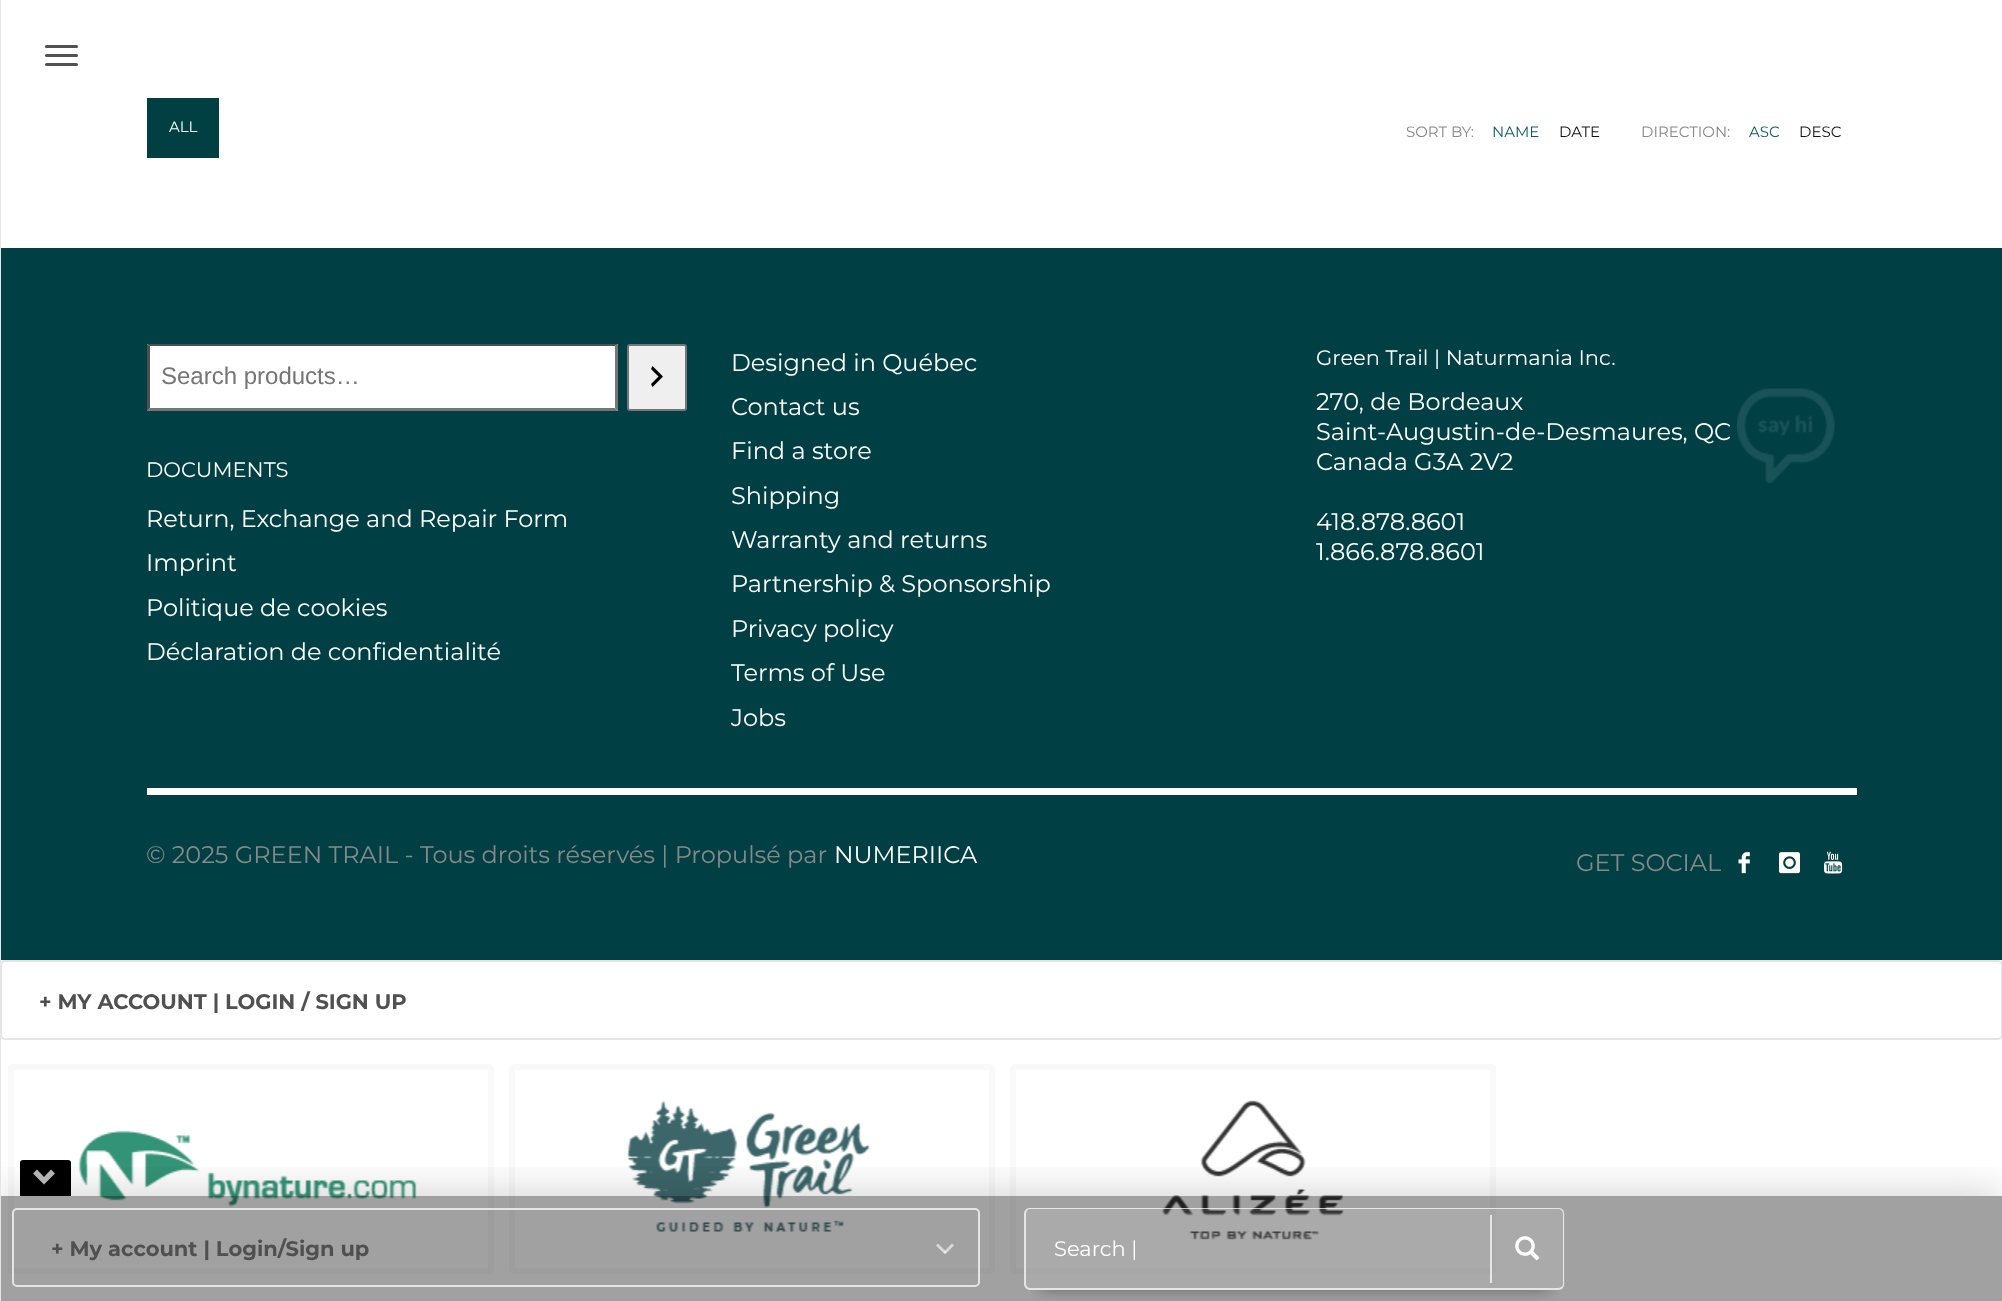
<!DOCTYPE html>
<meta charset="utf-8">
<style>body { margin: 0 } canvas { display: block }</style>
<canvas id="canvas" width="2002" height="1301"></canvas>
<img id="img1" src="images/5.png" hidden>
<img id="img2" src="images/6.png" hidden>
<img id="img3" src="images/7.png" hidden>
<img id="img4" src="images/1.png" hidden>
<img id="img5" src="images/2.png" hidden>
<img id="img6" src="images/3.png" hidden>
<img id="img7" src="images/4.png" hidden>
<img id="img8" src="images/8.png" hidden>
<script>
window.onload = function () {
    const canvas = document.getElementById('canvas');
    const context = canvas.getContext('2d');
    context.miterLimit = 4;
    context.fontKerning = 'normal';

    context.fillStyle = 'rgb(255, 255, 255)';
    context.fillRect(0, 0, 2002, 1301);
    context.beginPath();
    context.roundRect(1, 961, 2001, 78, 4);
    context.strokeStyle = 'rgb(229, 229, 229)';
    context.lineWidth = 2;
    context.stroke();
    context.beginPath();
    context.roundRect(11, 1067, 480, 204, 2);
    context.strokeStyle = 'rgb(249, 249, 249)';
    context.lineWidth = 6;
    context.stroke();
    context.drawImage(document.getElementById('img1'), 78, 1130, 339, 77);
    context.beginPath();
    context.roundRect(512, 1067, 480, 204, 2);
    context.stroke();
    context.drawImage(document.getElementById('img2'), 626, 1100, 244, 132);
    context.beginPath();
    context.roundRect(1013, 1067, 480, 204, 2);
    context.stroke();
    context.drawImage(document.getElementById('img3'), 1161, 1100, 184, 140);
    context.save();
    context.beginPath();
    context.rect(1, 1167, 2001, 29);
    context.clip();
    context.fillStyle = 'rgba(0, 0, 0, 0.2)';
    context.filter = 'blur(22.5px)';
    context.beginPath();
    context.rect(0, 1196, 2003, 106);
    context.fill();
    context.filter = 'none';
    context.restore();
    context.fillStyle = 'rgb(229, 229, 229)';
    context.fillRect(0, 0, 1, 1301);
    context.fillStyle = 'rgb(82, 82, 82)';
    context.beginPath();
    context.roundRect(45, 45, 33, 3, 1.5);
    context.fill();
    context.beginPath();
    context.roundRect(45, 54, 33, 3, 1.5);
    context.fill();
    context.beginPath();
    context.roundRect(45, 63, 33, 3, 1.5);
    context.fill();
    context.fillStyle = 'rgb(0, 64, 67)';
    context.fillRect(147, 98, 72, 60);
    context.fillStyle = 'rgb(0, 64, 68)';
    context.fillRect(1, 248, 2001, 712);
    context.fillStyle = 'rgb(255, 255, 255)';
    context.fillRect(147, 344, 471, 67);
    context.fillStyle = 'rgb(79, 79, 79)';
    context.beginPath();
    context.moveTo(147, 344);
    context.lineTo(618, 344);
    context.lineTo(615, 346);
    context.lineTo(150, 346);
    context.closePath();
    context.fill();
    context.fillStyle = 'rgb(118, 118, 118)';
    context.beginPath();
    context.moveTo(618, 344);
    context.lineTo(618, 411);
    context.lineTo(615, 408);
    context.lineTo(615, 346);
    context.closePath();
    context.fill();
    context.beginPath();
    context.moveTo(618, 411);
    context.lineTo(147, 411);
    context.lineTo(150, 408);
    context.lineTo(615, 408);
    context.closePath();
    context.fill();
    context.fillStyle = 'rgb(79, 79, 79)';
    context.beginPath();
    context.moveTo(147, 411);
    context.lineTo(147, 344);
    context.lineTo(150, 346);
    context.lineTo(150, 408);
    context.closePath();
    context.fill();
    context.fillStyle = 'rgb(239, 239, 239)';
    context.beginPath();
    context.roundRect(628, 345, 58, 65, 2);
    context.fill();
    context.strokeStyle = 'rgb(118, 118, 118)';
    context.lineWidth = 2;
    context.stroke();
    context.fillStyle = 'rgb(0, 0, 0)';
    context.beginPath();
    context.moveTo(651, 384);
    context.lineTo(658.5, 376.5);
    context.lineTo(651, 369);
    context.lineTo(652.5, 366);
    context.lineTo(663, 376.5);
    context.lineTo(652.5, 387);
    context.closePath();
    context.fill();
    context.drawImage(document.getElementById('img4'), 1737, 388, 98, 95);
    context.fillStyle = 'rgb(255, 255, 255)';
    context.fillRect(147, 788, 1710, 7);
    context.drawImage(document.getElementById('img5'), 1738, 852, 12, 22);
    context.drawImage(document.getElementById('img6'), 1779, 852, 21, 22);
    context.drawImage(document.getElementById('img7'), 1824, 851, 19, 23);
    context.fillStyle = 'rgba(0, 0, 0, 0.37)';
    context.fillRect(1, 1196, 2001, 105);
    context.fillStyle = 'rgb(0, 0, 0)';
    context.beginPath();
    context.roundRect(20, 1160, 51, 36, [3, 3, 0, 0]);
    context.fill();
    context.fillStyle = 'rgb(179, 179, 179)';
    context.beginPath();
    context.moveTo(55, 1173.5);
    context.lineTo(44, 1184.5);
    context.lineTo(33, 1173.5);
    context.lineTo(37, 1169.5);
    context.lineTo(44, 1177);
    context.lineTo(51, 1169.5);
    context.closePath();
    context.fill();
    context.beginPath();
    context.roundRect(13, 1209, 966, 77, 4);
    context.strokeStyle = 'rgb(229, 229, 229)';
    context.stroke();
    context.fillStyle = 'rgb(217, 217, 217)';
    context.beginPath();
    context.moveTo(938, 1243.5);
    context.lineTo(946.5, 1252);
    context.lineTo(944.5, 1254);
    context.lineTo(936, 1245.5);
    context.closePath();
    context.fill();
    context.fillStyle = 'rgba(255, 255, 255, 0.6)';
    context.beginPath();
    context.moveTo(943.5, 1252);
    context.lineTo(952, 1243.5);
    context.lineTo(954, 1245.5);
    context.lineTo(945.5, 1254);
    context.closePath();
    context.fill();
    context.save();
    context.beginPath();
    context.rect(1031, 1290, 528, 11);
    context.clip();
    context.fillStyle = 'rgba(0, 0, 0, 0.35)';
    context.filter = 'blur(7.5px)';
    context.beginPath();
    context.rect(1040, 1238, 510, 52);
    context.fill();
    context.filter = 'none';
    context.restore();
    context.fillStyle = 'rgba(255, 255, 255, 0.1)';
    context.beginPath();
    context.roundRect(1025, 1208, 465, 82, [6, 0, 0, 6]);
    context.fill();
    context.fillStyle = 'rgba(255, 255, 255, 0.7)';
    context.beginPath();
    context.moveTo(1030, 1208);
    context.lineTo(1490, 1208);
    context.lineTo(1490, 1290);
    context.lineTo(1030, 1290);
    context.bezierCurveTo(1027, 1290, 1024, 1287, 1024, 1284);
    context.lineTo(1024, 1214);
    context.bezierCurveTo(1024, 1210, 1027, 1208, 1030, 1208);
    context.closePath();
    context.moveTo(1030, 1209);
    context.lineTo(1490, 1209);
    context.lineTo(1490, 1288);
    context.lineTo(1030, 1288);
    context.bezierCurveTo(1028, 1288, 1026, 1286, 1026, 1284);
    context.lineTo(1026, 1214);
    context.bezierCurveTo(1026, 1211, 1028, 1209, 1030, 1209);
    context.closePath();
    context.fill('evenodd');
    context.fillStyle = 'rgba(255, 255, 255, 0.1)';
    context.beginPath();
    context.roundRect(1490, 1208, 75, 82, [0, 6, 6, 0]);
    context.fill();
    context.fillStyle = 'rgba(255, 255, 255, 0.7)';
    context.beginPath();
    context.moveTo(1490, 1208);
    context.lineTo(1558, 1208);
    context.bezierCurveTo(1562, 1208, 1564, 1210, 1564, 1214);
    context.lineTo(1564, 1284);
    context.bezierCurveTo(1564, 1287, 1562, 1290, 1558, 1290);
    context.lineTo(1490, 1290);
    context.closePath();
    context.moveTo(1490, 1209);
    context.lineTo(1558, 1209);
    context.bezierCurveTo(1561, 1209, 1563, 1211, 1563, 1214);
    context.lineTo(1563, 1284);
    context.bezierCurveTo(1563, 1286, 1561, 1288, 1558, 1288);
    context.lineTo(1490, 1288);
    context.closePath();
    context.fill('evenodd');
    context.fillRect(1490, 1215, 2, 68);
    context.drawImage(document.getElementById('img8'), 1515, 1236, 25, 25);
    context.font = '15px Montserrat';
    context.fillStyle = 'rgb(255, 255, 255)';
    context.fillText('ALL', 169, 132);
    context.fillStyle = 'rgb(136, 136, 136)';
    context.fillText('SORT BY:', 1406, 137);
    context.fillStyle = 'rgb(17, 93, 102)';
    context.fillText('NAME', 1492, 137);
    context.fillStyle = 'rgb(19, 19, 19)';
    context.fillText('DATE', 1559, 137);
    context.fillStyle = 'rgb(136, 136, 136)';
    context.fillText('DIRECTION:', 1641, 137);
    context.fillStyle = 'rgb(17, 93, 102)';
    context.fillText('ASC', 1749, 137);
    context.fillStyle = 'rgb(19, 19, 19)';
    context.fillText('DESC', 1799, 137);
    context.font = '24px Liberation Sans';
    context.fillStyle = 'rgb(117, 117, 117)';
    context.fillText('Search products…', 161, 384);
    context.font = '21px Montserrat';
    context.fillStyle = 'rgb(255, 255, 255)';
    context.fillText('DOCUMENTS', 146, 477);
    context.font = '24px Montserrat';
    context.fillText('Return, Exchange and Repair Form', 146, 527);
    context.fillText('Imprint', 146, 571);
    context.fillText('Politique de cookies', 146, 616);
    context.fillText('Déclaration de confidentialité', 146, 660);
    context.fillText('Designed in Québec', 731, 371);
    context.fillText('Contact us', 731, 415);
    context.fillText('Find a store', 731, 459);
    context.fillText('Shipping', 731, 504);
    context.fillText('Warranty and returns', 731, 548);
    context.fillText('Partnership & Sponsorship', 731, 592);
    context.fillText('Privacy policy', 731, 637);
    context.fillText('Terms of Use', 731, 681);
    context.fillText('Jobs', 731, 726);
    context.font = '21px Montserrat';
    context.fillText('Green Trail | Naturmania Inc.', 1316, 365);
    context.font = '24px Montserrat';
    context.fillText('270, de Bordeaux', 1316, 410);
    context.fillText('Saint-Augustin-de-Desmaures, QC', 1316, 440);
    context.fillText('Canada G3A 2V2', 1316, 470);
    context.fillText('418.878.8601', 1316, 530);
    context.fillText('1.866.878.8601', 1316, 560);
    context.fillStyle = 'rgb(136, 136, 136)';
    context.fillText('© 2025 GREEN TRAIL - Tous droits réservés | Propulsé par', 146, 863);
    context.fillStyle = 'rgb(255, 255, 255)';
    context.fillText('NUMERIICA', 834, 863);
    context.fillStyle = 'rgb(136, 136, 136)';
    context.fillText('GET SOCIAL', 1576, 871);
    context.font = 'bold 21px Montserrat';
    context.fillStyle = 'rgb(80, 80, 80)';
    context.fillText('+ MY ACCOUNT | LOGIN / SIGN UP', 39, 1009);
    context.fillText('+ My account | Login/Sign up', 51, 1256);
    context.font = '21px Montserrat';
    context.fillStyle = 'rgb(255, 255, 255)';
    context.fillText('Search |', 1054, 1256);
};
</script>
